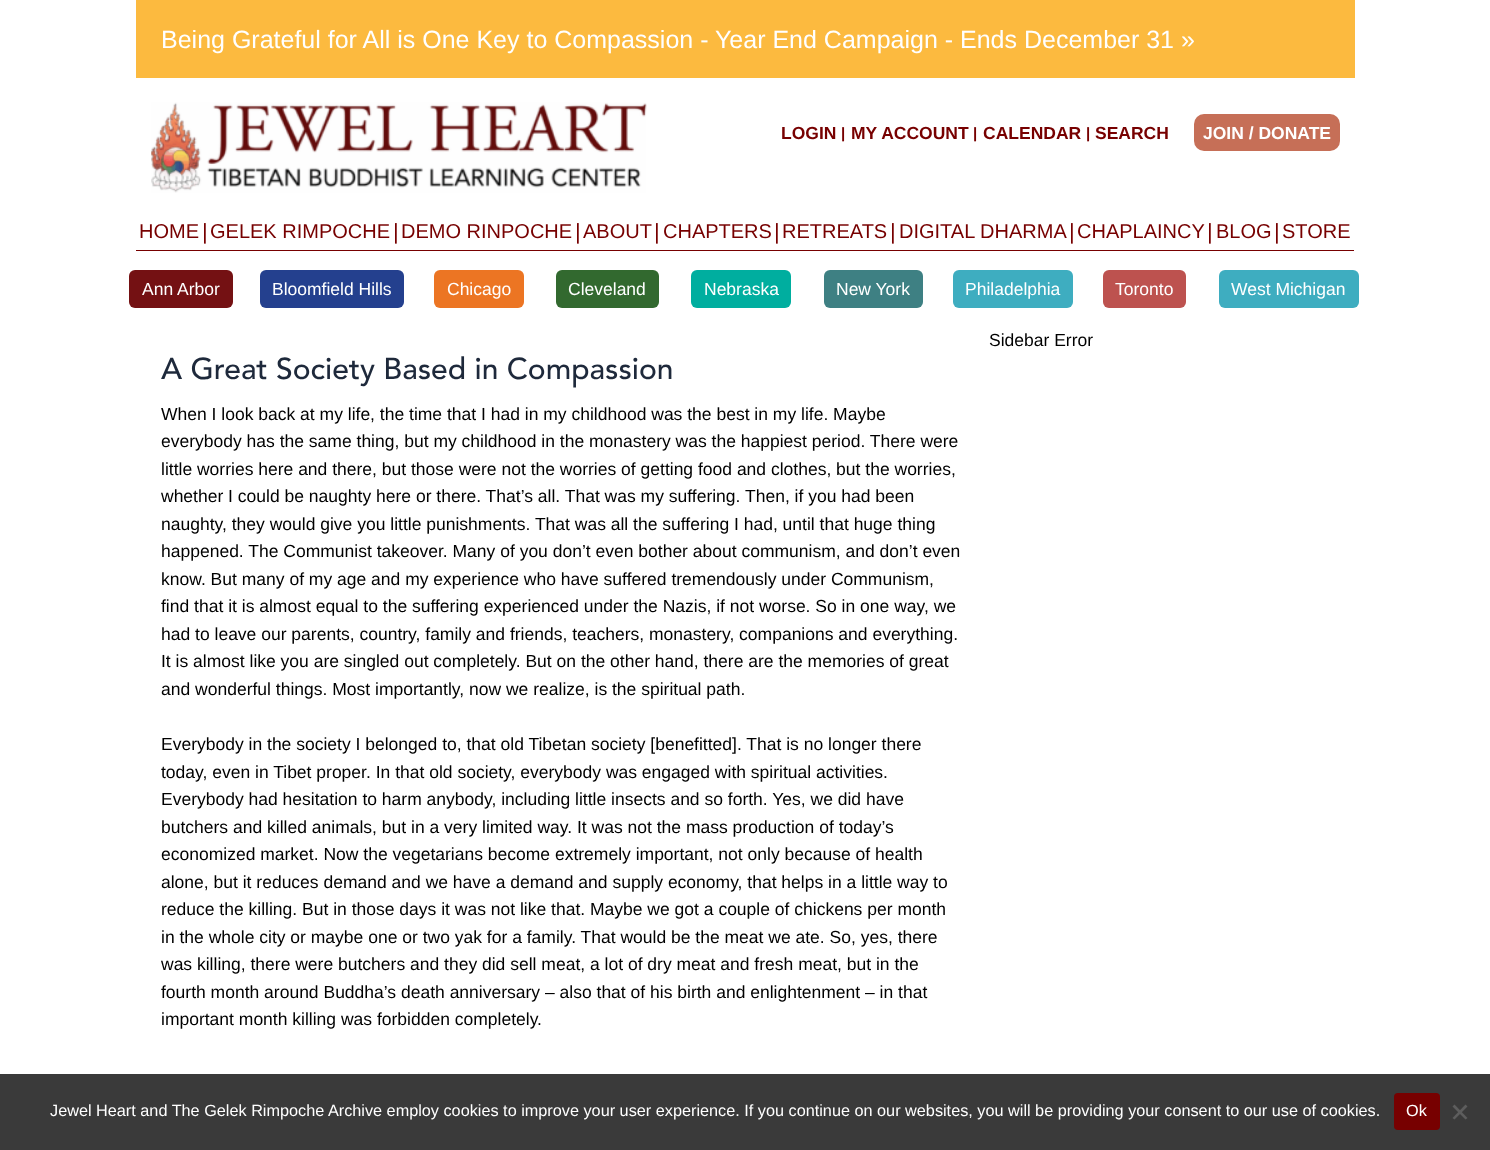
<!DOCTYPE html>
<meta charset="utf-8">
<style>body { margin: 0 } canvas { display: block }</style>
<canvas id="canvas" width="1490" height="1150"></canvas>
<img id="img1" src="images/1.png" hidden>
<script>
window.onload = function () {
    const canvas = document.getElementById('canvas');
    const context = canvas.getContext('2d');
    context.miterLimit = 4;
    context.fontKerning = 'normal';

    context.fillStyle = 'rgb(255, 255, 255)';
    context.fillRect(0, 0, 1490, 1150);
    context.fillStyle = 'rgb(252, 186, 63)';
    context.fillRect(136, 0, 1219, 78);
    context.drawImage(document.getElementById('img1'), 151, 102, 496, 91);
    context.fillStyle = 'rgb(198, 111, 87)';
    context.beginPath();
    context.roundRect(1194, 114, 146, 37, 10);
    context.fill();
    context.fillStyle = 'rgb(119, 0, 0)';
    context.fillRect(136, 250, 1218, 1);
    context.fillStyle = 'rgb(116, 17, 19)';
    context.beginPath();
    context.roundRect(129, 270, 104, 38, 6);
    context.fill();
    context.fillStyle = 'rgb(36, 64, 142)';
    context.beginPath();
    context.roundRect(260, 270, 144, 38, 6);
    context.fill();
    context.fillStyle = 'rgb(236, 117, 35)';
    context.beginPath();
    context.roundRect(434, 270, 90, 38, 6);
    context.fill();
    context.fillStyle = 'rgb(50, 105, 47)';
    context.beginPath();
    context.roundRect(556, 270, 103, 38, 6);
    context.fill();
    context.fillStyle = 'rgb(0, 174, 159)';
    context.beginPath();
    context.roundRect(691, 270, 100, 38, 6);
    context.fill();
    context.fillStyle = 'rgb(62, 128, 131)';
    context.beginPath();
    context.roundRect(824, 270, 99, 38, 6);
    context.fill();
    context.fillStyle = 'rgb(62, 173, 192)';
    context.beginPath();
    context.roundRect(953, 270, 120, 38, 6);
    context.fill();
    context.fillStyle = 'rgb(189, 82, 79)';
    context.beginPath();
    context.roundRect(1103, 270, 83, 38, 6);
    context.fill();
    context.fillStyle = 'rgb(62, 173, 192)';
    context.beginPath();
    context.roundRect(1219, 270, 140, 38, 6);
    context.fill();
    context.fillStyle = 'rgb(58, 58, 58)';
    context.fillRect(0, 1074, 1490, 76);
    context.fillStyle = 'rgb(119, 0, 0)';
    context.beginPath();
    context.roundRect(1394, 1093, 46, 37, 4);
    context.fill();
    context.fillStyle = 'rgb(93, 93, 93)';
    context.beginPath();
    context.moveTo(1465.5, 1104.5);
    context.lineTo(1467.5, 1106.5);
    context.lineTo(1454.5, 1119.5);
    context.lineTo(1452.5, 1118);
    context.closePath();
    context.fill();
    context.beginPath();
    context.moveTo(1452.5, 1106.5);
    context.lineTo(1454.5, 1104.5);
    context.lineTo(1467.5, 1118);
    context.lineTo(1465.5, 1119.5);
    context.closePath();
    context.fill();
    context.font = '25px Liberation Sans';
    context.fillStyle = 'rgb(255, 255, 255)';
    context.fillText('Being Grateful for All is One Key to Compassion - Year End Campaign - Ends December 31 »', 161, 48);
    context.font = 'bold 17.5px Liberation Sans';
    context.fillStyle = 'rgb(119, 0, 0)';
    context.fillText('LOGIN', 781, 139);
    context.font = 'bold 15px Liberation Sans';
    context.fillText('|', 841, 138);
    context.font = 'bold 17.5px Liberation Sans';
    context.fillText('MY ACCOUNT', 851, 139);
    context.font = 'bold 15px Liberation Sans';
    context.fillText('|', 973, 138);
    context.font = 'bold 17.5px Liberation Sans';
    context.fillText('CALENDAR', 983, 139);
    context.font = 'bold 15px Liberation Sans';
    context.fillText('|', 1086, 138);
    context.font = 'bold 17.5px Liberation Sans';
    context.fillText('SEARCH', 1095, 139);
    context.fillStyle = 'rgb(255, 255, 255)';
    context.fillText('JOIN / DONATE', 1203, 139);
    context.font = '20px Liberation Sans';
    context.fillStyle = 'rgb(119, 0, 0)';
    context.fillText('HOME', 139, 238);
    context.font = '22px Liberation Sans';
    context.fillText('|', 202, 239);
    context.font = '20px Liberation Sans';
    context.fillText('GELEK RIMPOCHE', 210, 238);
    context.font = '22px Liberation Sans';
    context.fillText('|', 393, 239);
    context.font = '20px Liberation Sans';
    context.fillText('DEMO RINPOCHE', 401, 238);
    context.font = '22px Liberation Sans';
    context.fillText('|', 575, 239);
    context.font = '20px Liberation Sans';
    context.fillText('ABOUT', 583, 238);
    context.font = '22px Liberation Sans';
    context.fillText('|', 654, 239);
    context.font = '20px Liberation Sans';
    context.fillText('CHAPTERS', 663, 238);
    context.font = '22px Liberation Sans';
    context.fillText('|', 774, 239);
    context.font = '20px Liberation Sans';
    context.fillText('RETREATS', 782, 238);
    context.font = '22px Liberation Sans';
    context.fillText('|', 890, 239);
    context.font = '20px Liberation Sans';
    context.fillText('DIGITAL DHARMA', 899, 238);
    context.font = '22px Liberation Sans';
    context.fillText('|', 1069, 239);
    context.font = '20px Liberation Sans';
    context.fillText('CHAPLAINCY', 1077, 238);
    context.font = '22px Liberation Sans';
    context.fillText('|', 1207, 239);
    context.font = '20px Liberation Sans';
    context.fillText('BLOG', 1216, 238);
    context.font = '22px Liberation Sans';
    context.fillText('|', 1274, 239);
    context.font = '20px Liberation Sans';
    context.fillText('STORE', 1282, 238);
    context.font = '17.5px Liberation Sans';
    context.fillStyle = 'rgb(255, 255, 255)';
    context.fillText('Ann Arbor', 142, 295);
    context.fillText('Bloomfield Hills', 272, 295);
    context.fillText('Chicago', 447, 295);
    context.fillText('Cleveland', 568, 295);
    context.fillText('Nebraska', 704, 295);
    context.fillText('New York', 836, 295);
    context.fillText('Philadelphia', 965, 295);
    context.fillText('Toronto', 1115, 295);
    context.fillText('West Michigan', 1231, 295);
    context.fillStyle = 'rgb(0, 0, 0)';
    context.fillText('Sidebar Error', 989, 346);
    context.font = '500 30px Avenir';
    context.fillStyle = 'rgb(30, 41, 59)';
    context.fillText('A Great Society Based in Compassion', 161, 379);
    context.font = '17.5px Liberation Sans';
    context.fillStyle = 'rgb(0, 0, 0)';
    context.fillText('When I look back at my life, the time that I had in my childhood was the best in my life. Maybe', 161, 420);
    context.fillText('everybody has the same thing, but my childhood in the monastery was the happiest period. There were', 161, 447);
    context.fillText('little worries here and there, but those were not the worries of getting food and clothes, but the worries,', 161, 475);
    context.fillText('whether I could be naughty here or there. That’s all. That was my suffering. Then, if you had been', 161, 502);
    context.fillText('naughty, they would give you little punishments. That was all the suffering I had, until that huge thing', 161, 530);
    context.fillText('happened. The Communist takeover. Many of you don’t even bother about communism, and don’t even', 161, 557);
    context.fillText('know. But many of my age and my experience who have suffered tremendously under Communism,', 161, 585);
    context.fillText('find that it is almost equal to the suffering experienced under the Nazis, if not worse. So in one way, we', 161, 612);
    context.fillText('had to leave our parents, country, family and friends, teachers, monastery, companions and everything.', 161, 640);
    context.fillText('It is almost like you are singled out completely. But on the other hand, there are the memories of great', 161, 667);
    context.fillText('and wonderful things. Most importantly, now we realize, is the spiritual path.', 161, 695);
    context.fillText('Everybody in the society I belonged to, that old Tibetan society [benefitted]. That is no longer there', 161, 750);
    context.fillText('today, even in Tibet proper. In that old society, everybody was engaged with spiritual activities.', 161, 778);
    context.fillText('Everybody had hesitation to harm anybody, including little insects and so forth. Yes, we did have', 161, 805);
    context.fillText('butchers and killed animals, but in a very limited way. It was not the mass production of today’s', 161, 833);
    context.fillText('economized market. Now the vegetarians become extremely important, not only because of health', 161, 860);
    context.fillText('alone, but it reduces demand and we have a demand and supply economy, that helps in a little way to', 161, 888);
    context.fillText('reduce the killing. But in those days it was not like that. Maybe we got a couple of chickens per month', 161, 915);
    context.fillText('in the whole city or maybe one or two yak for a family. That would be the meat we ate. So, yes, there', 161, 943);
    context.fillText('was killing, there were butchers and they did sell meat, a lot of dry meat and fresh meat, but in the', 161, 970);
    context.fillText('fourth month around Buddha’s death anniversary – also that of his birth and enlightenment – in that', 161, 998);
    context.fillText('important month killing was forbidden completely.', 161, 1025);
    context.font = '16.25px Liberation Sans';
    context.fillStyle = 'rgb(255, 255, 255)';
    context.fillText('Jewel Heart and The Gelek Rimpoche Archive employ cookies to improve your user experience. If you continue on our websites, you will be providing your consent to our use of cookies.', 50, 1116);
    context.fillText('Ok', 1406, 1116);
};
</script>
